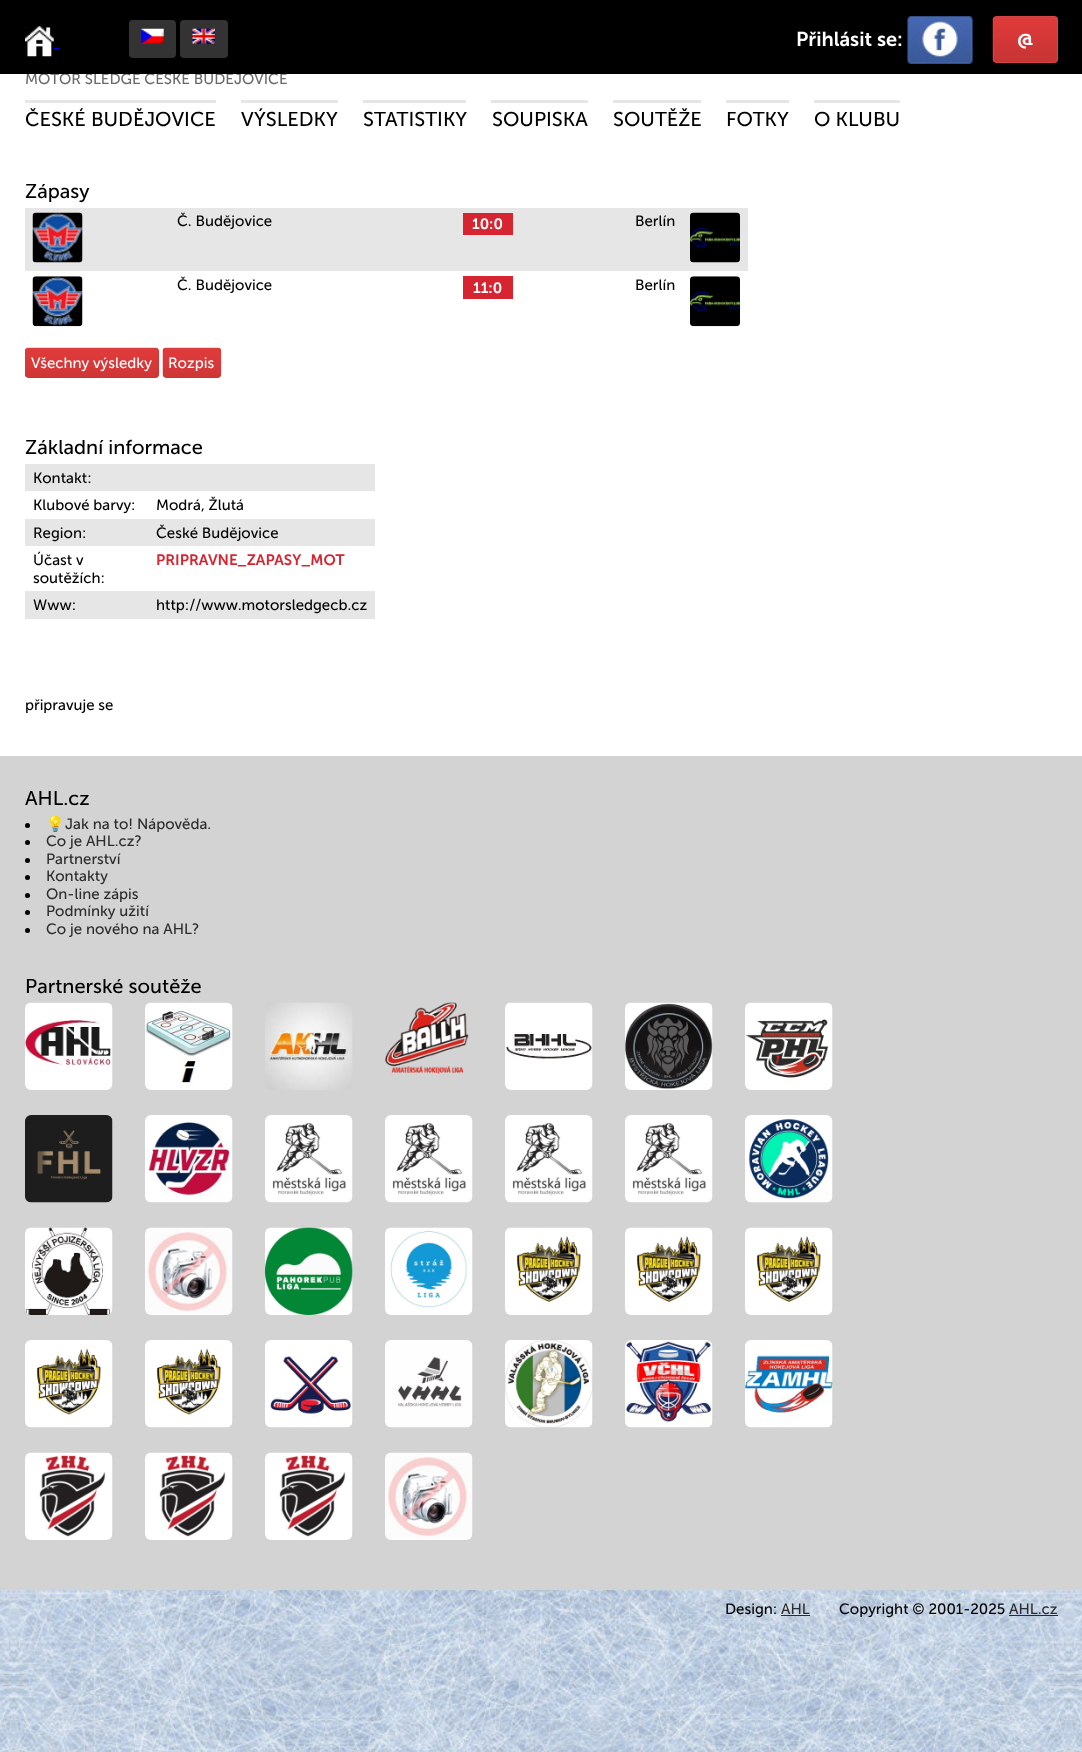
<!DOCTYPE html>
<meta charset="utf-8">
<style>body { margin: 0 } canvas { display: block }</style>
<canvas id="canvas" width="1082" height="1752"></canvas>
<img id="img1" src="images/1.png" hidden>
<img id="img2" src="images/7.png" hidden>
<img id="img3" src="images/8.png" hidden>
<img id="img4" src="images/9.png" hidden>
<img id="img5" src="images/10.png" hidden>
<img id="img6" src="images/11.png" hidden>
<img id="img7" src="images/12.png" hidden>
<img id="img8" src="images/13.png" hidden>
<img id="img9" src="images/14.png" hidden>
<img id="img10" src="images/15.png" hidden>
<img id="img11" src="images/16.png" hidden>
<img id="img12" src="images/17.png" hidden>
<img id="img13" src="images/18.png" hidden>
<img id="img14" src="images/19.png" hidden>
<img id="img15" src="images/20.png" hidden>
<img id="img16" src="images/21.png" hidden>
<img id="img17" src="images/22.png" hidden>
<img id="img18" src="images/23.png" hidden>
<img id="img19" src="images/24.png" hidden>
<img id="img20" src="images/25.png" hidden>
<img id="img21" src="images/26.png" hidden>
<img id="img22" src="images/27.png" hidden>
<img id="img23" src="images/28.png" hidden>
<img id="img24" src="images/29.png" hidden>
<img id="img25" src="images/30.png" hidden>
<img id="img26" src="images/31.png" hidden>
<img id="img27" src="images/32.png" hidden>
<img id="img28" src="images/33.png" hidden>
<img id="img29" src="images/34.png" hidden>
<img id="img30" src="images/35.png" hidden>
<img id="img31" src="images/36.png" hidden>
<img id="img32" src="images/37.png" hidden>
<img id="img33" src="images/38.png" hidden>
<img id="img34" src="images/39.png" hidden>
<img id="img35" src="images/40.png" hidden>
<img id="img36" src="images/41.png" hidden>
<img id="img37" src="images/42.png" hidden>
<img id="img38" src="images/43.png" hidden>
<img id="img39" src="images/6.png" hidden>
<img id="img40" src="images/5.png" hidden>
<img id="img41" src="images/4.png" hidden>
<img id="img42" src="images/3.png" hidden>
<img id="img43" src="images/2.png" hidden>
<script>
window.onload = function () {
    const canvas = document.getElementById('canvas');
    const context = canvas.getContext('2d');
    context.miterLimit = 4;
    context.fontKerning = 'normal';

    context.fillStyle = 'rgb(255, 255, 255)';
    context.fillRect(0, 0, 1082, 1752);
    context.drawImage(document.getElementById('img1'), 0, 1590, 1082, 162);
    context.fillStyle = 'rgb(230, 230, 230)';
    context.fillRect(25, 100, 191, 3);
    context.fillRect(241, 100, 97, 3);
    context.fillRect(363, 100, 103, 3);
    context.fillRect(491, 100, 97, 3);
    context.fillRect(613, 100, 88, 3);
    context.fillRect(726, 100, 63, 3);
    context.fillRect(814, 100, 86, 3);
    context.fillRect(25, 208, 723, 63);
    context.drawImage(document.getElementById('img2'), 32, 212, 51, 51);
    context.fillStyle = 'rgb(214, 36, 49)';
    context.fillRect(463, 213, 50, 22);
    context.drawImage(document.getElementById('img3'), 690, 212, 50, 51);
    context.drawImage(document.getElementById('img4'), 32, 276, 51, 51);
    context.fillRect(463, 276, 50, 23);
    context.drawImage(document.getElementById('img5'), 690, 276, 50, 51);
    context.fillStyle = 'rgb(200, 52, 52)';
    context.beginPath();
    context.roundRect(25, 348, 134, 30, 4);
    context.fill();
    context.drawImage(document.getElementById('img6'), 25, 347, 134, 31);
    context.beginPath();
    context.roundRect(163, 348, 58, 30, 4);
    context.fill();
    context.drawImage(document.getElementById('img7'), 162, 347, 60, 31);
    context.fillStyle = 'rgb(230, 230, 230)';
    context.fillRect(25, 464, 350, 27);
    context.fillRect(25, 519, 350, 27);
    context.fillRect(25, 591, 350, 28);
    context.fillStyle = 'rgb(211, 211, 211)';
    context.fillRect(0, 756, 1082, 834);
    context.fillStyle = 'rgb(0, 0, 0)';
    context.beginPath();
    context.arc(27.5, 825.5, 2.5, 0, 2 * Math.PI);
    context.fill();
    context.beginPath();
    context.arc(27.5, 842.5, 2.5, 0, 2 * Math.PI);
    context.fill();
    context.beginPath();
    context.arc(27.5, 860.5, 2.5, 0, 2 * Math.PI);
    context.fill();
    context.beginPath();
    context.arc(27.5, 877.5, 2.5, 0, 2 * Math.PI);
    context.fill();
    context.beginPath();
    context.arc(27.5, 895.5, 2.5, 0, 2 * Math.PI);
    context.fill();
    context.beginPath();
    context.arc(27.5, 912.5, 2.5, 0, 2 * Math.PI);
    context.fill();
    context.beginPath();
    context.arc(27.5, 930.5, 2.5, 0, 2 * Math.PI);
    context.fill();
    context.drawImage(document.getElementById('img8'), 25, 1002, 88, 88);
    context.drawImage(document.getElementById('img9'), 145, 1002, 88, 88);
    context.drawImage(document.getElementById('img10'), 265, 1002, 88, 88);
    context.drawImage(document.getElementById('img11'), 385, 1002, 84, 72);
    context.drawImage(document.getElementById('img12'), 505, 1002, 88, 88);
    context.drawImage(document.getElementById('img13'), 625, 1002, 88, 88);
    context.drawImage(document.getElementById('img14'), 745, 1002, 88, 88);
    context.drawImage(document.getElementById('img15'), 25, 1115, 88, 88);
    context.drawImage(document.getElementById('img16'), 145, 1115, 88, 88);
    context.drawImage(document.getElementById('img17'), 265, 1115, 88, 88);
    context.drawImage(document.getElementById('img18'), 385, 1115, 88, 88);
    context.drawImage(document.getElementById('img19'), 505, 1115, 88, 88);
    context.drawImage(document.getElementById('img18'), 625, 1115, 88, 88);
    context.drawImage(document.getElementById('img20'), 745, 1115, 88, 88);
    context.drawImage(document.getElementById('img21'), 25, 1227, 88, 88);
    context.drawImage(document.getElementById('img22'), 145, 1227, 88, 88);
    context.drawImage(document.getElementById('img23'), 265, 1227, 88, 88);
    context.drawImage(document.getElementById('img24'), 385, 1227, 88, 88);
    context.drawImage(document.getElementById('img25'), 505, 1227, 88, 88);
    context.drawImage(document.getElementById('img26'), 625, 1227, 88, 88);
    context.drawImage(document.getElementById('img27'), 745, 1227, 88, 88);
    context.drawImage(document.getElementById('img28'), 25, 1340, 88, 88);
    context.drawImage(document.getElementById('img29'), 145, 1340, 88, 88);
    context.drawImage(document.getElementById('img30'), 265, 1340, 88, 88);
    context.drawImage(document.getElementById('img31'), 385, 1340, 88, 88);
    context.drawImage(document.getElementById('img32'), 505, 1340, 88, 88);
    context.drawImage(document.getElementById('img33'), 625, 1340, 88, 88);
    context.drawImage(document.getElementById('img34'), 745, 1340, 88, 88);
    context.drawImage(document.getElementById('img35'), 25, 1452, 88, 88);
    context.drawImage(document.getElementById('img36'), 145, 1452, 88, 88);
    context.drawImage(document.getElementById('img37'), 265, 1452, 88, 88);
    context.drawImage(document.getElementById('img38'), 385, 1452, 88, 88);
    context.fillStyle = 'rgb(44, 44, 44)';
    context.fillRect(781, 1615, 29, 1);
    context.fillRect(1009, 1615, 49, 1);
    context.font = '15px Museo Sans';
    context.fillStyle = 'rgb(105, 105, 105)';
    context.fillText('MOTOR SLEDGE ČESKÉ BUDĚJOVICE', 25, 84);
    context.fillStyle = 'rgb(0, 0, 0)';
    context.fillRect(0, 0, 1082, 74);
    context.fillStyle = 'rgb(200, 52, 52)';
    context.beginPath();
    context.roundRect(993, 16, 65, 47, 4);
    context.fill();
    context.drawImage(document.getElementById('img39'), 992, 17, 66, 46);
    context.beginPath();
    context.roundRect(993.5, 16.5, 64, 46, 3.5);
    context.strokeStyle = 'rgb(216, 68, 68)';
    context.stroke();
    context.font = '600 20px Museo Sans';
    context.fillStyle = 'rgb(255, 255, 255)';
    context.fillText('@', 1017, 46);
    context.drawImage(document.getElementById('img40'), 907, 16, 66, 48);
    context.fillText('Přihlásit se:', 796, 46);
    context.fillStyle = 'rgb(51, 51, 51)';
    context.beginPath();
    context.roundRect(180, 20, 48, 38, 4);
    context.fill();
    context.drawImage(document.getElementById('img41'), 192, 28, 23, 16);
    context.beginPath();
    context.roundRect(129, 20, 47, 38, 4);
    context.fill();
    context.drawImage(document.getElementById('img42'), 141, 28, 23, 16);
    context.fillStyle = 'rgb(0, 0, 238)';
    context.fillRect(54, 48, 5, 1);
    context.drawImage(document.getElementById('img43'), 25, 26, 29, 31);
    context.font = '20px Museo Sans';
    context.fillStyle = 'rgb(0, 0, 0)';
    context.fillText('ČESKÉ BUDĚJOVICE', 25, 126);
    context.fillText('VÝSLEDKY', 241, 126);
    context.fillText('STATISTIKY', 363, 126);
    context.fillText('SOUPISKA', 492, 126);
    context.fillText('SOUTĚŽE', 613, 126);
    context.fillText('FOTKY', 726, 126);
    context.fillText('O KLUBU', 814, 126);
    context.fillText('Zápasy', 25, 198);
    context.font = '15px Museo Sans';
    context.fillText('Č. Budějovice', 177, 226);
    context.font = '600 15px Museo Sans';
    context.fillStyle = 'rgb(255, 255, 255)';
    context.fillText('10:0', 472, 229);
    context.font = '15px Museo Sans';
    context.fillStyle = 'rgb(0, 0, 0)';
    context.fillText('Berlín', 635, 226);
    context.fillText('Č. Budějovice', 177, 290);
    context.font = '600 15px Museo Sans';
    context.fillStyle = 'rgb(255, 255, 255)';
    context.fillText('11:0', 473, 293);
    context.font = '15px Museo Sans';
    context.fillStyle = 'rgb(0, 0, 0)';
    context.fillText('Berlín', 635, 290);
    context.fillStyle = 'rgb(255, 255, 255)';
    context.fillText('Všechny výsledky', 31, 368);
    context.fillText('Rozpis', 168, 368);
    context.font = '20px Museo Sans';
    context.fillStyle = 'rgb(0, 0, 0)';
    context.fillText('Základní informace', 25, 454);
    context.font = '15px Museo Sans';
    context.fillText('Kontakt:', 33, 483);
    context.fillText('Klubové barvy:', 33, 510);
    context.fillText('Modrá, Žlutá', 156, 510);
    context.fillText('Region:', 33, 538);
    context.fillText('České Budějovice', 156, 538);
    context.fillText('Účast v', 33, 565);
    context.fillText('soutěžích:', 33, 583);
    context.font = '600 15px Museo Sans';
    context.fillStyle = 'rgb(214, 36, 49)';
    context.fillText('PRIPRAVNE_ZAPASY_MOT', 156, 565);
    context.font = '15px Museo Sans';
    context.fillStyle = 'rgb(0, 0, 0)';
    context.fillText('Www:', 33, 610);
    context.fillText('http://www.motorsledgecb.cz', 156, 610);
    context.fillText('připravuje se', 25, 710);
    context.font = '20px Museo Sans';
    context.fillText('AHL.cz', 25, 805);
    context.font = '15px Noto Color Emoji';
    context.fillStyle = 'rgb(44, 44, 44)';
    context.fillText('💡', 46, 829);
    context.font = '15px Museo Sans';
    context.fillText('Jak na to! Nápověda.', 65, 829);
    context.fillText('Co je AHL.cz?', 46, 846);
    context.fillText('Partnerství', 46, 864);
    context.fillText('Kontakty', 46, 881);
    context.fillText('On-line zápis', 46, 899);
    context.fillText('Podmínky užití', 46, 916);
    context.fillText('Co je nového na AHL?', 46, 934);
    context.font = '20px Museo Sans';
    context.fillStyle = 'rgb(0, 0, 0)';
    context.fillText('Partnerské soutěže', 25, 993);
    context.font = '15px Museo Sans';
    context.fillText('Design:', 725, 1614);
    context.fillStyle = 'rgb(44, 44, 44)';
    context.fillText('AHL', 781, 1614);
    context.fillStyle = 'rgb(0, 0, 0)';
    context.fillText('Copyright © 2001-2025', 839, 1614);
    context.fillStyle = 'rgb(44, 44, 44)';
    context.fillText('AHL.cz', 1009, 1614);
};
</script>
